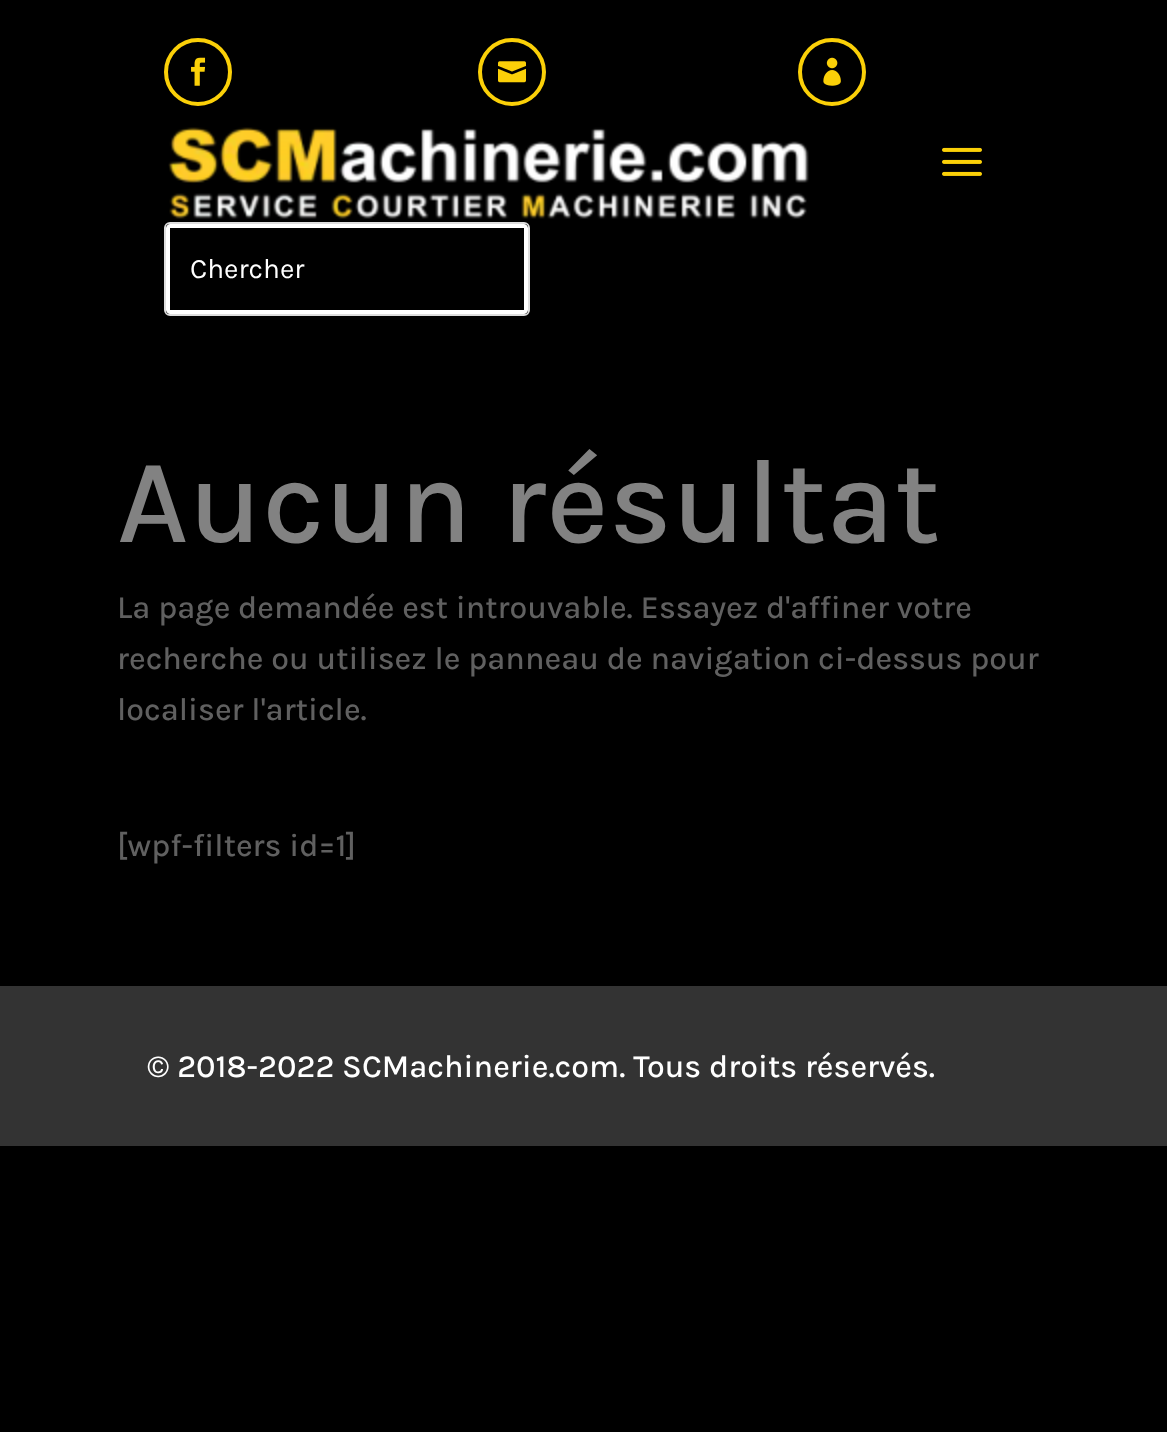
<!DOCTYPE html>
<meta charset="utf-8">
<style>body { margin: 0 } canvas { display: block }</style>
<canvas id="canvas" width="1167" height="1432"></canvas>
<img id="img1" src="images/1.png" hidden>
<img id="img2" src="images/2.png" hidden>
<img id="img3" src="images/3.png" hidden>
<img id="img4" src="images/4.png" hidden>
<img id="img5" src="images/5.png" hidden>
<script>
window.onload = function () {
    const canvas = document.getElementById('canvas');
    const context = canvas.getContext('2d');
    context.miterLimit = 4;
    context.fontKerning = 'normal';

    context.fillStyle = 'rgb(0, 0, 0)';
    context.fillRect(0, 0, 1167, 1432);
    context.beginPath();
    context.arc(198, 72, 32, 0, 2 * Math.PI);
    context.strokeStyle = 'rgb(251, 208, 8)';
    context.lineWidth = 4;
    context.stroke();
    context.drawImage(document.getElementById('img1'), 191, 57, 15, 29);
    context.beginPath();
    context.arc(512, 72, 32, 0, 2 * Math.PI);
    context.stroke();
    context.drawImage(document.getElementById('img2'), 498, 61, 28, 22);
    context.beginPath();
    context.arc(832, 72, 32, 0, 2 * Math.PI);
    context.stroke();
    context.drawImage(document.getElementById('img3'), 823, 57, 18, 29);
    context.drawImage(document.getElementById('img4'), 168, 127, 641, 92);
    context.drawImage(document.getElementById('img5'), 942, 147, 40, 29);
    context.beginPath();
    context.roundRect(165, 223, 364, 92, 5);
    context.strokeStyle = 'rgb(221, 221, 221)';
    context.lineWidth = 2;
    context.stroke();
    context.beginPath();
    context.roundRect(166, 224, 362, 90, 4);
    context.fill();
    context.fillStyle = 'rgb(255, 255, 255)';
    context.beginPath();
    context.moveTo(170, 224);
    context.bezierCurveTo(168, 224, 166, 226, 166, 228);
    context.lineTo(166, 310);
    context.bezierCurveTo(166, 312, 168, 314, 170, 314);
    context.lineTo(524, 314);
    context.bezierCurveTo(526, 314, 528, 312, 528, 310);
    context.lineTo(528, 228);
    context.bezierCurveTo(528, 226, 526, 224, 524, 224);
    context.closePath();
    context.moveTo(170, 228);
    context.lineTo(170, 310);
    context.lineTo(524, 310);
    context.lineTo(524, 228);
    context.closePath();
    context.fill('evenodd');
    context.fillStyle = 'rgb(51, 51, 51)';
    context.fillRect(0, 986, 1167, 160);
    context.font = '28px Karla';
    context.fillStyle = 'rgb(255, 255, 255)';
    context.fillText('Chercher', 190, 278);
    context.font = '500 120px Karla';
    context.fillStyle = 'rgb(130, 130, 130)';
    context.fillText('Aucun résultat', 117, 542);
    context.font = '500 32px Karla';
    context.fillStyle = 'rgb(96, 96, 96)';
    context.fillText('La page demandée est introuvable. Essayez d\'affiner votre', 117, 618);
    context.fillText('recherche ou utilisez le panneau de navigation ci-dessus pour', 117, 669);
    context.fillText('localiser l\'article.', 117, 720);
    context.fillText('[wpf-filters id=1]', 117, 856);
    context.fillStyle = 'rgb(255, 255, 255)';
    context.fillText('© 2018-2022 SCMachinerie.com. Tous droits réservés.', 147, 1077);
};
</script>
